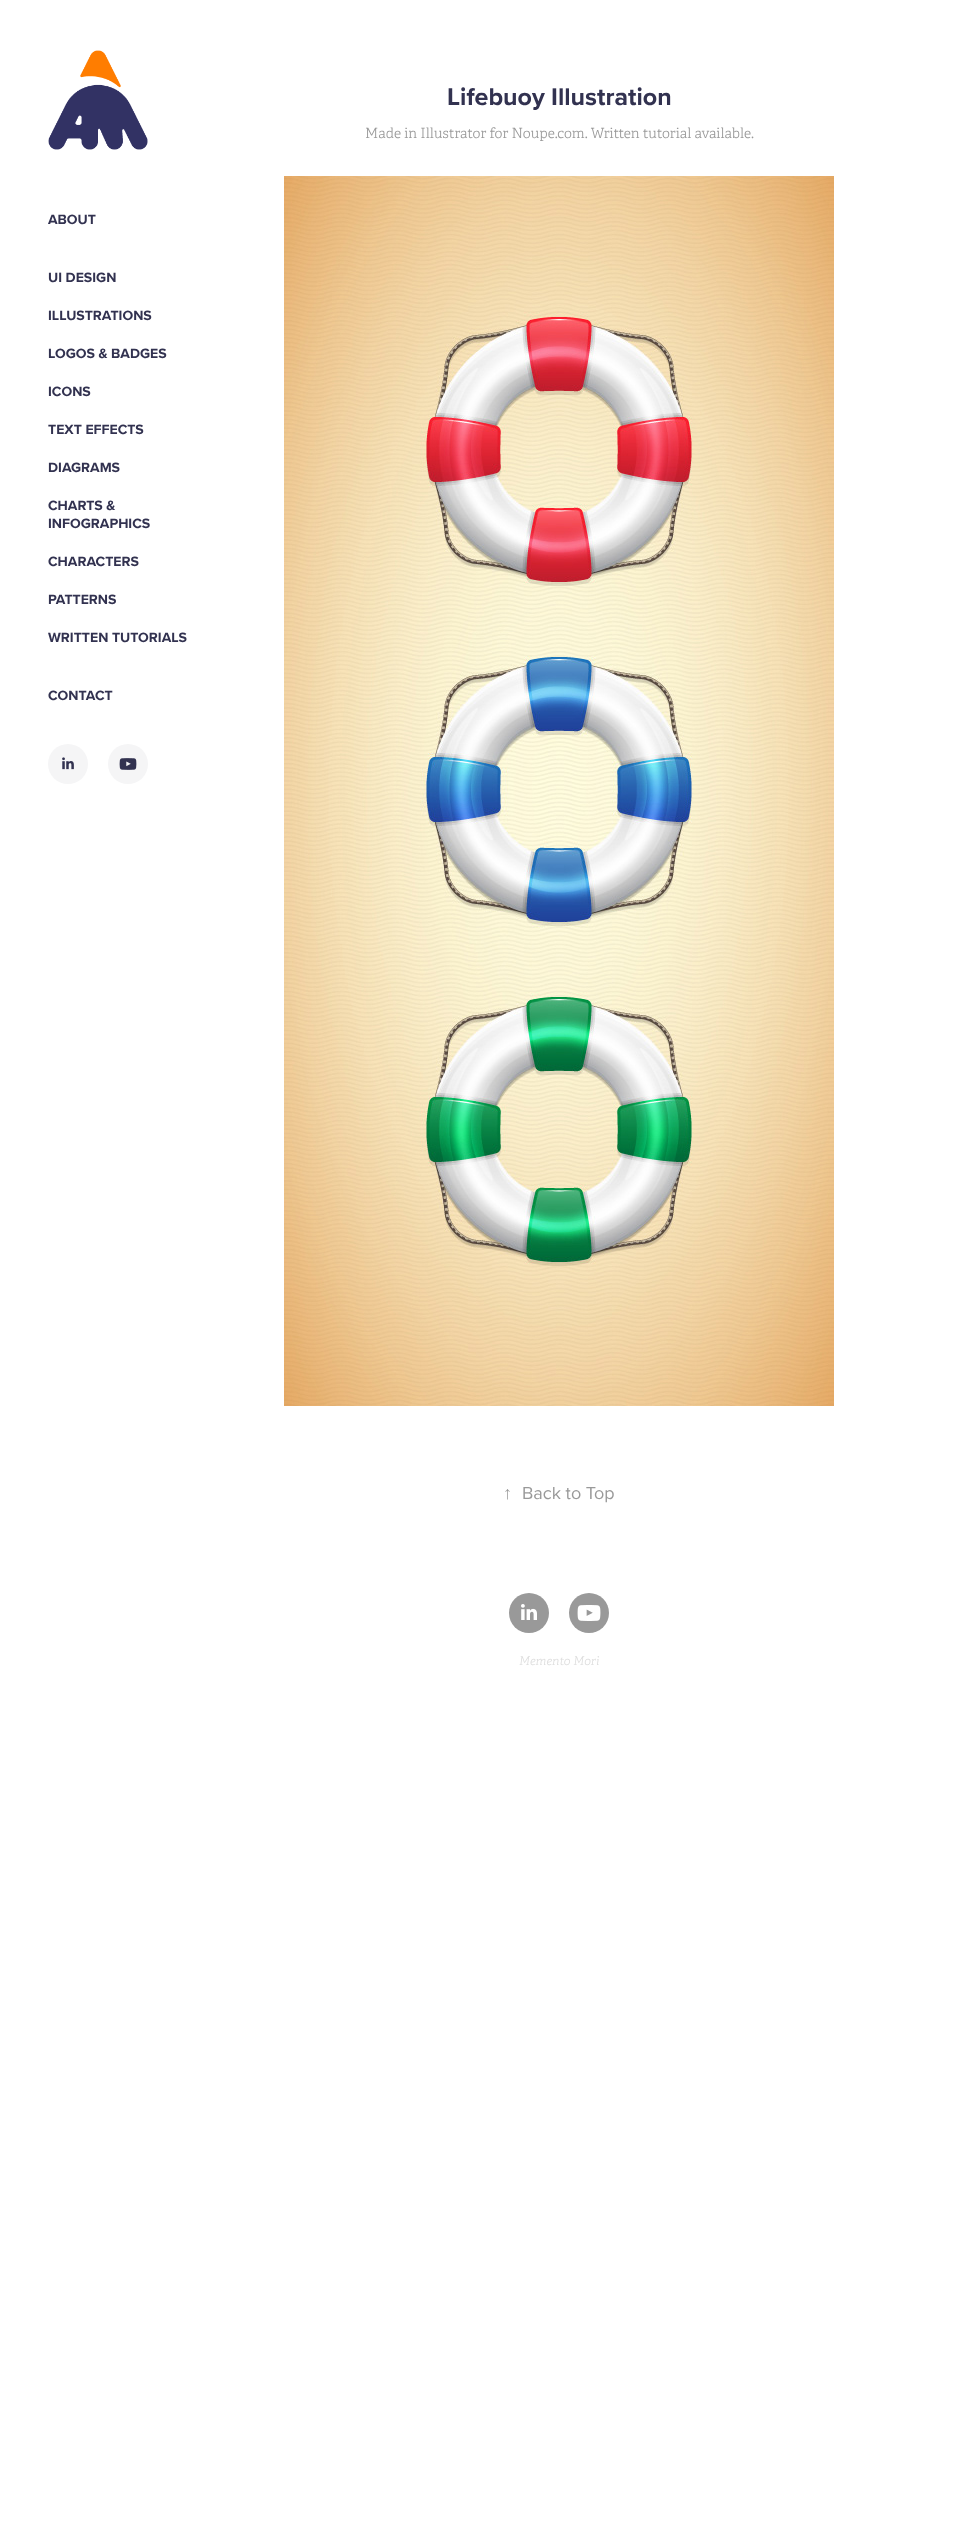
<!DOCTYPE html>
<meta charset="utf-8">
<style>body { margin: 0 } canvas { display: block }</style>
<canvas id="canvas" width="955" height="2535"></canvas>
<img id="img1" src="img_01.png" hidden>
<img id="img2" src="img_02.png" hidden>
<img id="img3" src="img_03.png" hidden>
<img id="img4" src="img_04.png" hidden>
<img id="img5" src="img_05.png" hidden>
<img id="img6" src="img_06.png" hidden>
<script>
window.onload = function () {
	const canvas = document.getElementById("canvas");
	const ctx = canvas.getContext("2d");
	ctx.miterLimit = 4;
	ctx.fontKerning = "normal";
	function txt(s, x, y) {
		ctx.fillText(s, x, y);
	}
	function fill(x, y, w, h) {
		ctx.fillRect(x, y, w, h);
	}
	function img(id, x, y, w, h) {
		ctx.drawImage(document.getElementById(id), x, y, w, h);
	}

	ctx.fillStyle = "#FFFFFF";
	fill(0, 0, 955, 2535);
	img("img1", 48, 50, 100, 100);
	ctx.fillStyle = "#F5F5F6";
	ctx.beginPath();
	ctx.arc(68, 764, 20, 0, Math.PI * 2);
	ctx.fill();
	img("img2", 62, 757, 12, 13);
	ctx.beginPath();
	ctx.arc(128, 764, 20, 0, Math.PI * 2);
	ctx.fill();
	img("img3", 119, 758, 18, 12);
	img("img4", 284, 176, 550, 1230);
	ctx.fillStyle = "#999999";
	ctx.beginPath();
	ctx.arc(529, 1613, 20, 0, Math.PI * 2);
	ctx.fill();
	img("img5", 521, 1604, 16, 16);
	ctx.beginPath();
	ctx.arc(589, 1613, 20, 0, Math.PI * 2);
	ctx.fill();
	img("img6", 577, 1605, 24, 16);
	ctx.font = "bold 14px Proxima Nova";
	ctx.fillStyle = "#323250";
	txt("ABOUT", 48, 224);
	txt("UI DESIGN", 48, 282);
	txt("ILLUSTRATIONS", 48, 320);
	txt("LOGOS & BADGES", 48, 358);
	txt("ICONS", 48, 396);
	txt("TEXT EFFECTS", 48, 434);
	txt("DIAGRAMS", 48, 472);
	txt("CHARTS &", 48, 510);
	txt("INFOGRAPHICS", 48, 528);
	txt("CHARACTERS", 48, 566);
	txt("PATTERNS", 48, 604);
	txt("WRITTEN TUTORIALS", 48, 642);
	txt("CONTACT", 48, 700);
	ctx.font = "bold 25px Proxima Nova";
	txt("Lifebuoy Illustration", 447, 105);
	ctx.font = "300 14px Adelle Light";
	ctx.fillStyle = "#999999";
	txt("Made in Illustrator for Noupe.com. Written tutorial available.", 365, 138);
	ctx.font = "18px Liberation Serif";
	txt("↑", 503, 1499);
	ctx.font = "18px Proxima Nova";
	txt("Back to Top", 522, 1499);
	ctx.font = "italic 300 12px Adelle Light";
	ctx.fillStyle = "#DDDDDD";
	txt("Memento Mori", 519, 1665);
};
</script>
